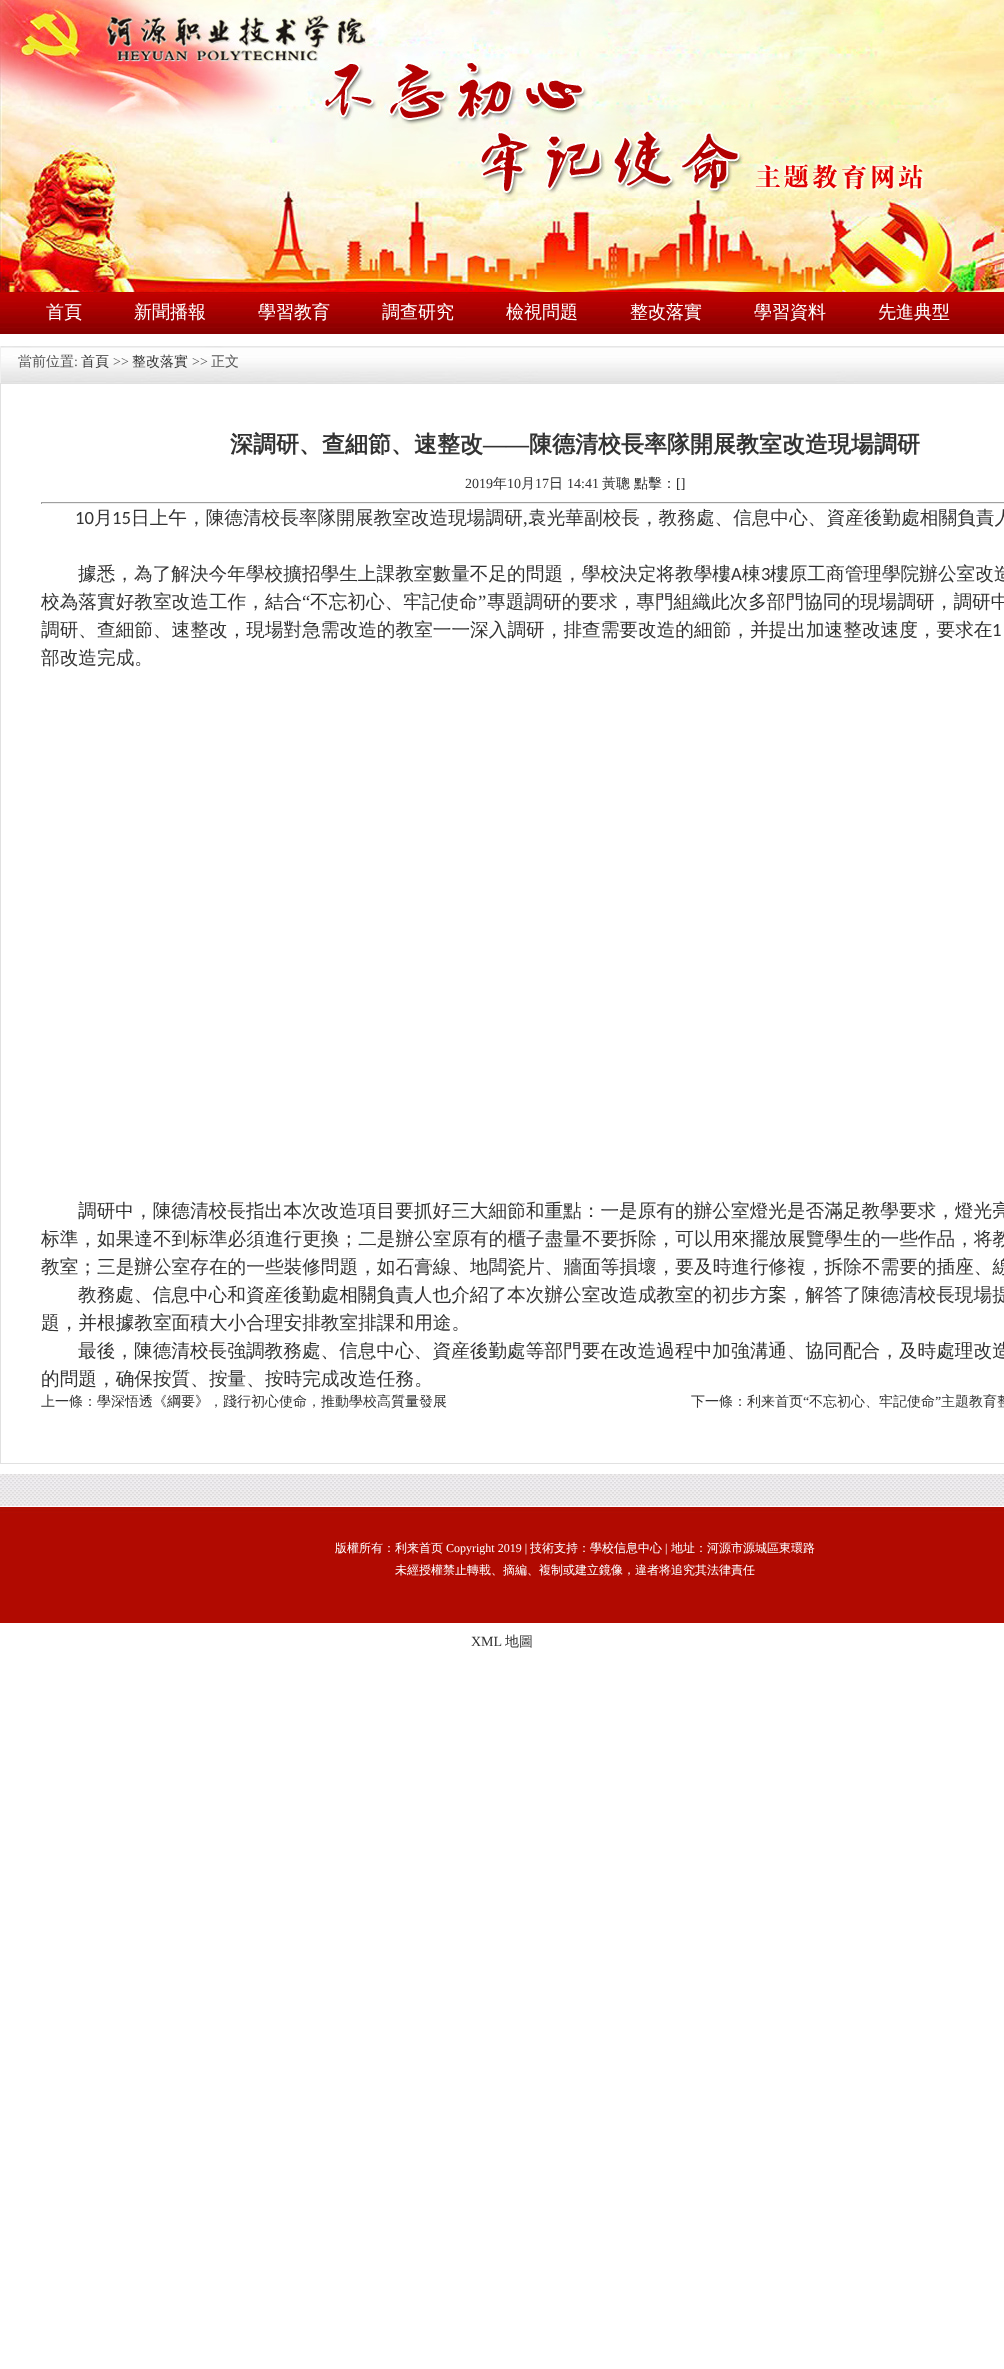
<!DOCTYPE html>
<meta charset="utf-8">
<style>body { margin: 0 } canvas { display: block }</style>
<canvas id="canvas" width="1004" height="2369"></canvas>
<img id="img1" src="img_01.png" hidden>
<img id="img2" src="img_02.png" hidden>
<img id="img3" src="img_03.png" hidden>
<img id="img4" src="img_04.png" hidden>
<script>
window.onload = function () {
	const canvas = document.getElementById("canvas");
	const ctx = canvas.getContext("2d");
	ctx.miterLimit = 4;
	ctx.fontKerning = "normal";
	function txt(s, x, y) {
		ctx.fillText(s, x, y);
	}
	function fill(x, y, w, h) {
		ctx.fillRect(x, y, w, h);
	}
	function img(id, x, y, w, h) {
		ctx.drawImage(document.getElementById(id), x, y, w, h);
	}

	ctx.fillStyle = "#FFFFFF";
	fill(0, 0, 1004, 2369);
	img("img1", 0, 0, 1004, 292);
	img("img2", 0, 292, 1004, 42);
	img("img3", 0, 346, 1004, 37);
	ctx.strokeStyle = "#E1E1E1";
	ctx.strokeRect(0.5, 383.5, 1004, 1080);
	ctx.fillStyle = "#9F9F9F";
	fill(41, 502, 963, 1);
	ctx.fillStyle = "#EEEEEE";
	fill(41, 503, 963, 1);
	ctx.fillStyle = "#9F9F9F";
	fill(41, 502, 1, 2);
	img("img4", 0, 1474, 1004, 149);
	ctx.font = "500 18px WenQuanYi Zen Hei";
	ctx.fillStyle = "#FFFFFF";
	txt("首頁", 46, 318);
	txt("新聞播報", 134, 318);
	txt("學習教育", 258, 318);
	txt("調查研究", 382, 318);
	txt("檢視問題", 506, 318);
	txt("整改落實", 630, 318);
	txt("學習資料", 754, 318);
	txt("先進典型", 878, 318);
	ctx.font = "500 14px WenQuanYi Zen Hei";
	ctx.fillStyle = "#555555";
	txt("當前位置", 18, 366);
	ctx.font = "14px Liberation Serif";
	txt(":", 74, 366);
	ctx.font = "500 14px WenQuanYi Zen Hei";
	ctx.fillStyle = "#333333";
	txt("首頁", 81, 366);
	ctx.font = "14px Liberation Serif";
	ctx.fillStyle = "#555555";
	txt(">>", 113, 366);
	ctx.font = "500 14px WenQuanYi Zen Hei";
	ctx.fillStyle = "#333333";
	txt("整改落實", 132, 366);
	ctx.font = "14px Liberation Serif";
	ctx.fillStyle = "#555555";
	txt(">>", 192, 366);
	ctx.font = "500 14px WenQuanYi Zen Hei";
	txt("正文", 211, 366);
	ctx.font = "bold 23px WenQuanYi Zen Hei";
	ctx.fillStyle = "#333333";
	txt("深調研、查細節、速整改", 230, 452);
	ctx.font = "bold 23px Liberation Serif";
	txt("——", 483, 452);
	ctx.font = "bold 23px WenQuanYi Zen Hei";
	txt("陳德清校長率隊開展教室改造現場調研", 529, 452);
	ctx.font = "14px Liberation Serif";
	txt("2019", 465, 488);
	ctx.font = "500 14px WenQuanYi Zen Hei";
	txt("年", 493, 488);
	ctx.font = "14px Liberation Serif";
	txt("10", 507, 488);
	ctx.font = "500 14px WenQuanYi Zen Hei";
	txt("月", 521, 488);
	ctx.font = "14px Liberation Serif";
	txt("17", 535, 488);
	ctx.font = "500 14px WenQuanYi Zen Hei";
	txt("日", 549, 488);
	ctx.font = "14px Liberation Serif";
	txt("14:41", 567, 488);
	ctx.font = "500 14px WenQuanYi Zen Hei";
	txt("黃聰", 602, 488);
	ctx.fillStyle = "#222222";
	txt("點擊：", 634, 488);
	ctx.font = "14px Liberation Serif";
	txt("[]", 676, 488);
	ctx.font = "18.67px Carlito";
	ctx.fillStyle = "#333333";
	txt("10", 75, 524);
	ctx.font = "500 18.67px WenQuanYi Zen Hei";
	txt("月", 94, 524);
	ctx.font = "18.67px Carlito";
	txt("15", 112, 524);
	ctx.font = "500 18.67px WenQuanYi Zen Hei";
	txt("日上午，陳德清校長率隊開展教室改造現場調研", 131, 524);
	ctx.font = "18.67px Liberation Serif";
	txt(",", 523, 524);
	ctx.font = "500 18.67px WenQuanYi Zen Hei";
	txt("袁光華副校長，教務處、信息中心、資産後勤處相關負責人", 528, 524);
	txt("據悉，為了解決今年學校擴招學生上課教室數量不足的問題，學校決定将教學樓", 78, 580);
	ctx.font = "18.67px Carlito";
	txt("A", 731, 580);
	ctx.font = "500 18.67px WenQuanYi Zen Hei";
	txt("棟", 742, 580);
	ctx.font = "18.67px Carlito";
	txt("3", 761, 580);
	ctx.font = "500 18.67px WenQuanYi Zen Hei";
	txt("樓原工商管理學院辦公室改造", 770, 580);
	txt("校為落實好教室改造工作，結合", 41, 608);
	ctx.font = "18.67px Liberation Serif";
	txt("“", 302, 608);
	ctx.font = "500 18.67px WenQuanYi Zen Hei";
	txt("不忘初心、牢記使命", 310, 608);
	ctx.font = "18.67px Liberation Serif";
	txt("”", 478, 608);
	ctx.font = "500 18.67px WenQuanYi Zen Hei";
	txt("專題調研的要求，專門組織此次多部門協同的現場調研，調研中", 487, 608);
	txt("調研、查細節、速整改，現場對急需改造的教室一一深入調研，排查需要改造的細節，并提出加速整改速度，要求在", 41, 636);
	ctx.font = "18.67px Carlito";
	txt("1", 992, 636);
	ctx.font = "500 18.67px WenQuanYi Zen Hei";
	txt("部改造完成。", 41, 664);
	txt("調研中，陳德清校長指出本次改造項目要抓好三大細節和重點：一是原有的辦公室燈光是否滿足教學要求，燈光亮", 78, 1217);
	txt("标準，如果達不到标準必須進行更換；二是辦公室原有的櫃子盡量不要拆除，可以用來擺放展覽學生的一些作品，将教", 41, 1245);
	txt("教室；三是辦公室存在的一些裝修問題，如石膏線、地闆瓷片、牆面等損壞，要及時進行修複，拆除不需要的插座、線", 41, 1273);
	txt("教務處、信息中心和資産後勤處相關負責人也介紹了本次辦公室改造成教室的初步方案，解答了陳德清校長現場提", 78, 1301);
	txt("題，并根據教室面積大小合理安排教室排課和用途。", 41, 1329);
	txt("最後，陳德清校長強調教務處、信息中心、資産後勤處等部門要在改造過程中加強溝通、協同配合，及時處理改造", 78, 1357);
	txt("的問題，确保按質、按量、按時完成改造任務。", 41, 1385);
	ctx.font = "500 14px WenQuanYi Zen Hei";
	txt("上一條：學深悟透《綱要》，踐行初心使命，推動學校高質量發展", 41, 1406);
	txt("下一條：利来首页", 691, 1406);
	ctx.font = "14px Liberation Serif";
	txt("“", 803, 1406);
	ctx.font = "500 14px WenQuanYi Zen Hei";
	txt("不忘初心、牢記使命", 809, 1406);
	ctx.font = "14px Liberation Serif";
	txt("”", 935, 1406);
	ctx.font = "500 14px WenQuanYi Zen Hei";
	txt("主題教育整", 941, 1406);
	ctx.font = "500 12px WenQuanYi Zen Hei";
	ctx.fillStyle = "#FFFFFF";
	txt("版權所有：利来首页", 335, 1552);
	ctx.font = "12px Liberation Serif";
	txt("Copyright 2019 |", 446, 1552);
	ctx.font = "500 12px WenQuanYi Zen Hei";
	txt("技術支持：學校信息中心", 530, 1552);
	ctx.font = "12px Liberation Serif";
	txt("|", 665, 1552);
	ctx.font = "500 12px WenQuanYi Zen Hei";
	txt("地址：河源市源城區東環路", 671, 1552);
	txt("未經授權禁止轉載、摘編、複制或建立鏡像，違者将追究其法律責任", 395, 1574);
	ctx.font = "14px Liberation Serif";
	ctx.fillStyle = "#333333";
	txt("XML", 471, 1646);
	ctx.font = "500 14px WenQuanYi Zen Hei";
	txt("地圖", 505, 1646);
};
</script>
